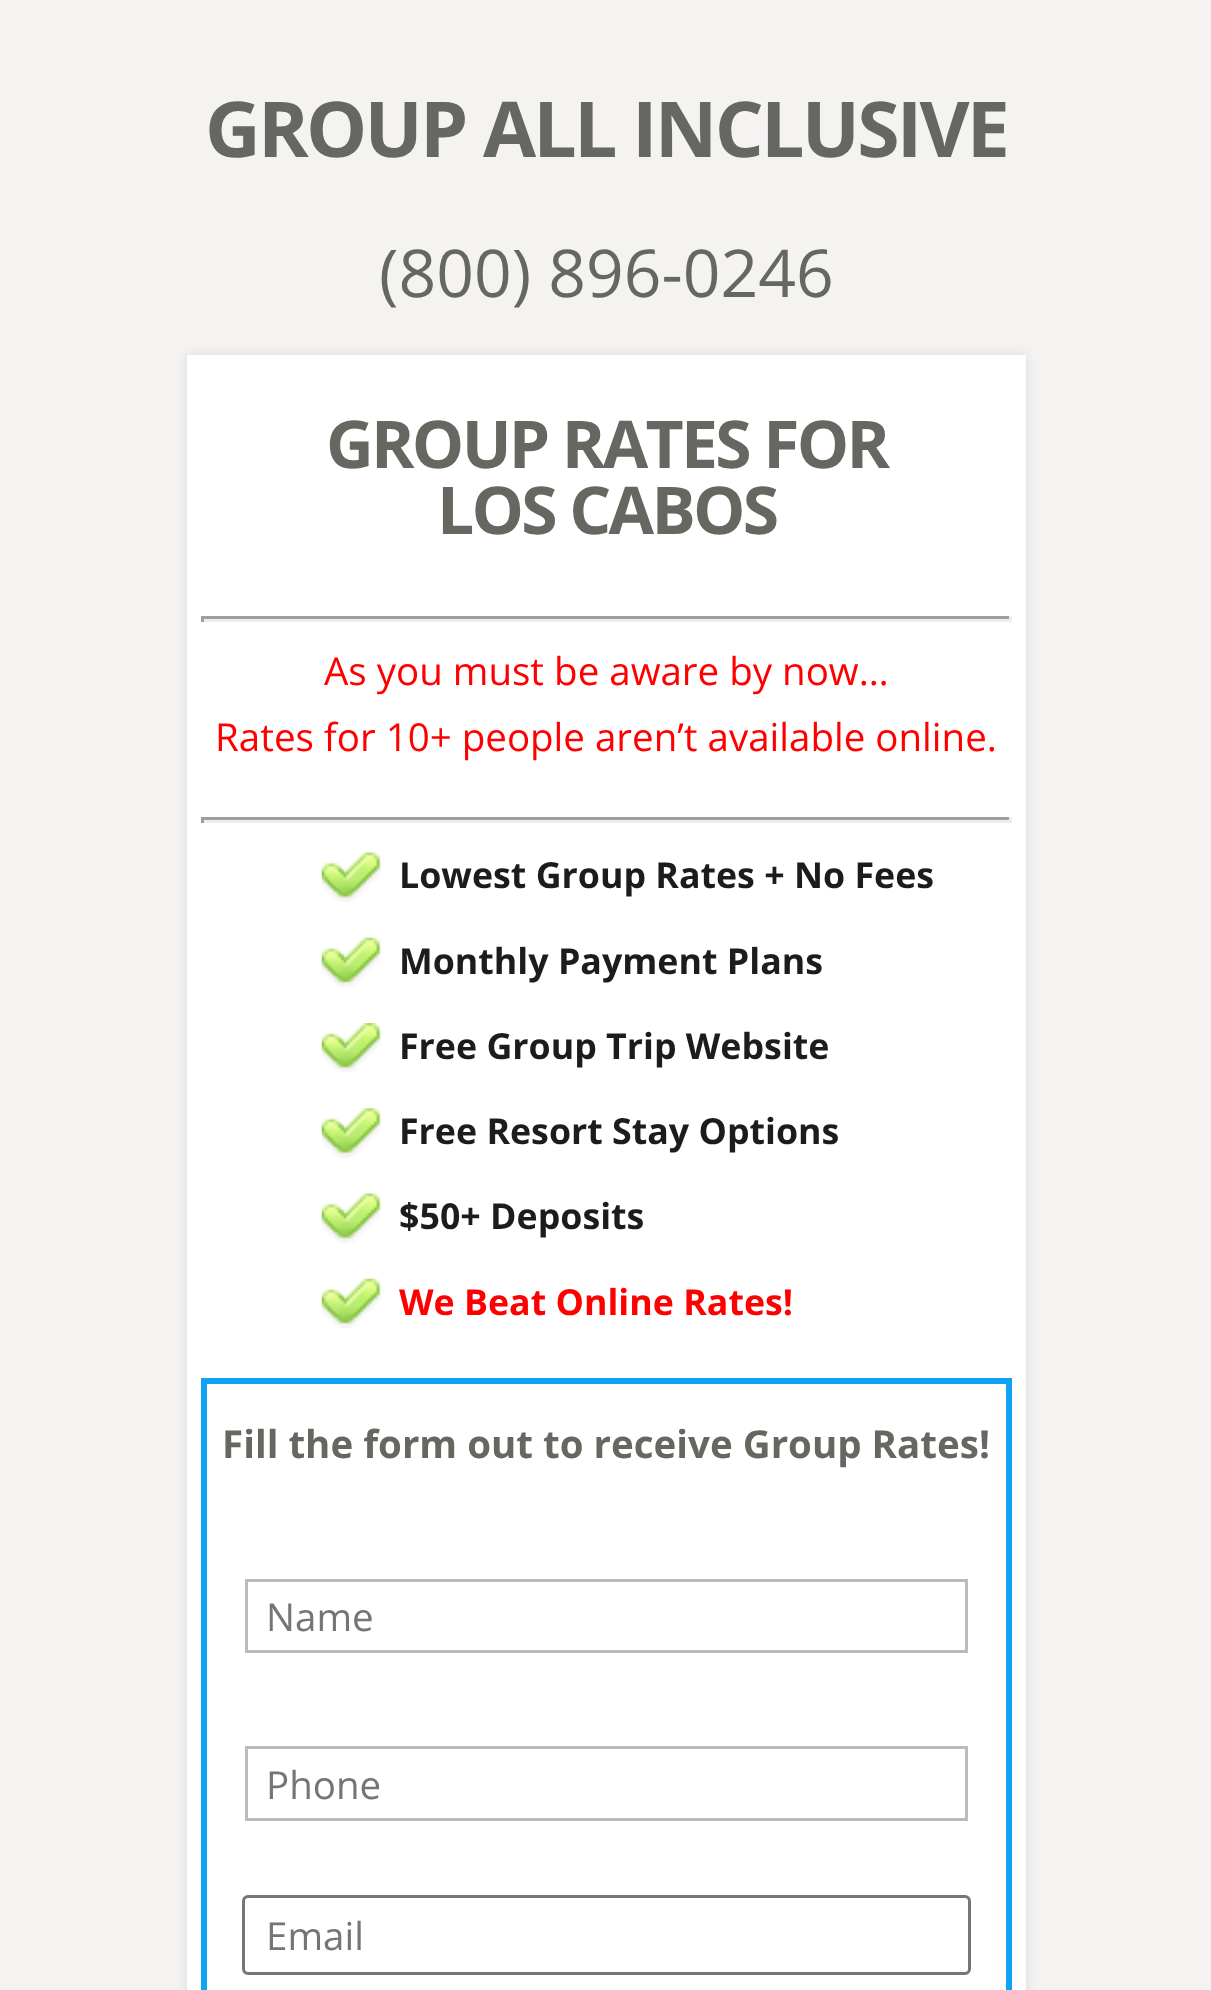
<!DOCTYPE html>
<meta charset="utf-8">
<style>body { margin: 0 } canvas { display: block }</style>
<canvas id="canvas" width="1211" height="1990"></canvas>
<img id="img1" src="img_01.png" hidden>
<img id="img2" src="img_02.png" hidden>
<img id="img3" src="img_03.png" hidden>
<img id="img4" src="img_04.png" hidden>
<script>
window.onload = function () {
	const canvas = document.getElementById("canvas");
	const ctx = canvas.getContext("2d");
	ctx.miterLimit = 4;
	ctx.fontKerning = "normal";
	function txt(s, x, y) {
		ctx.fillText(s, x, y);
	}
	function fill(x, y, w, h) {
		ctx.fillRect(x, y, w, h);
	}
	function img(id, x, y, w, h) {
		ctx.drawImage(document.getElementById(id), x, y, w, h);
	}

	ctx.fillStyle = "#F5F2F2";
	fill(0, 0, 1211, 1990);
	ctx.fillStyle = "rgba(0, 0, 0, 0.1)";
	ctx.filter = "blur(5.5px)";
	ctx.beginPath();
	ctx.rect(187, 355, 839, 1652);
	ctx.fill();
	ctx.filter = "none";
	ctx.fillStyle = "#FFFFFF";
	fill(187, 355, 839, 1635);
	ctx.fillStyle = "#9F9F9F";
	fill(201, 616, 811, 3);
	ctx.fillStyle = "#EEEEEE";
	fill(1009, 616, 3, 6);
	fill(201, 619, 811, 3);
	ctx.fillStyle = "#9F9F9F";
	fill(201, 616, 3, 6);
	fill(201, 817, 811, 3);
	ctx.fillStyle = "#EEEEEE";
	fill(1009, 817, 3, 6);
	fill(201, 820, 811, 3);
	ctx.fillStyle = "#9F9F9F";
	fill(201, 817, 3, 6);
	img("img1", 321, 852, 60, 50);
	img("img2", 321, 937, 60, 50);
	img("img3", 321, 1023, 60, 49);
	img("img4", 321, 1108, 60, 50);
	img("img1", 321, 1193, 60, 50);
	img("img2", 321, 1278, 60, 50);
	ctx.strokeStyle = "#11A3F2";
	ctx.lineWidth = 6;
	ctx.strokeRect(204, 1381, 805, 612);
	ctx.strokeStyle = "#BBBBBB";
	ctx.lineWidth = 3;
	ctx.strokeRect(246.5, 1580.5, 720, 71);
	ctx.strokeRect(246.5, 1747.5, 720, 72);
	ctx.beginPath();
	ctx.roundRect(243.5, 1896.5, 726, 77, 4.5);
	ctx.strokeStyle = "#767676";
	ctx.stroke();
	ctx.letterSpacing = "-2.75px";
	ctx.font = "bold 77px Open Sans";
	ctx.fillStyle = "#676761";
	txt("GROUP ALL INCLUSIVE", 205, 157);
	ctx.letterSpacing = "0px";
	ctx.font = "66px Open Sans";
	txt("(800) 896-0246", 379, 297);
	ctx.letterSpacing = "-2.75px";
	ctx.font = "bold 66px Open Sans";
	txt("GROUP RATES FOR", 326, 468);
	txt("LOS CABOS", 437, 534);
	ctx.letterSpacing = "0px";
	ctx.font = "38.5px Open Sans";
	ctx.fillStyle = "#FF0000";
	txt("As you must be aware by now…", 324, 685);
	txt("Rates for 10+ people aren’t available online.", 215, 751);
	ctx.font = "bold 35.75px Open Sans";
	ctx.fillStyle = "#1C1C1C";
	txt("Lowest Group Rates + No Fees", 399, 888);
	txt("Monthly Payment Plans", 399, 974);
	txt("Free Group Trip Website", 399, 1059);
	txt("Free Resort Stay Options", 399, 1144);
	txt("$50+ Deposits", 399, 1229);
	ctx.fillStyle = "#FF0000";
	txt("We Beat Online Rates!", 399, 1315);
	ctx.font = "bold 38.5px Open Sans";
	ctx.fillStyle = "#676761";
	txt("Fill the form out to receive Group Rates!", 222, 1458);
	ctx.font = "38.5px Open Sans";
	ctx.fillStyle = "#757575";
	txt("Name", 266, 1631);
	txt("Phone", 266, 1799);
	txt("Email", 266, 1950);
};
</script>
